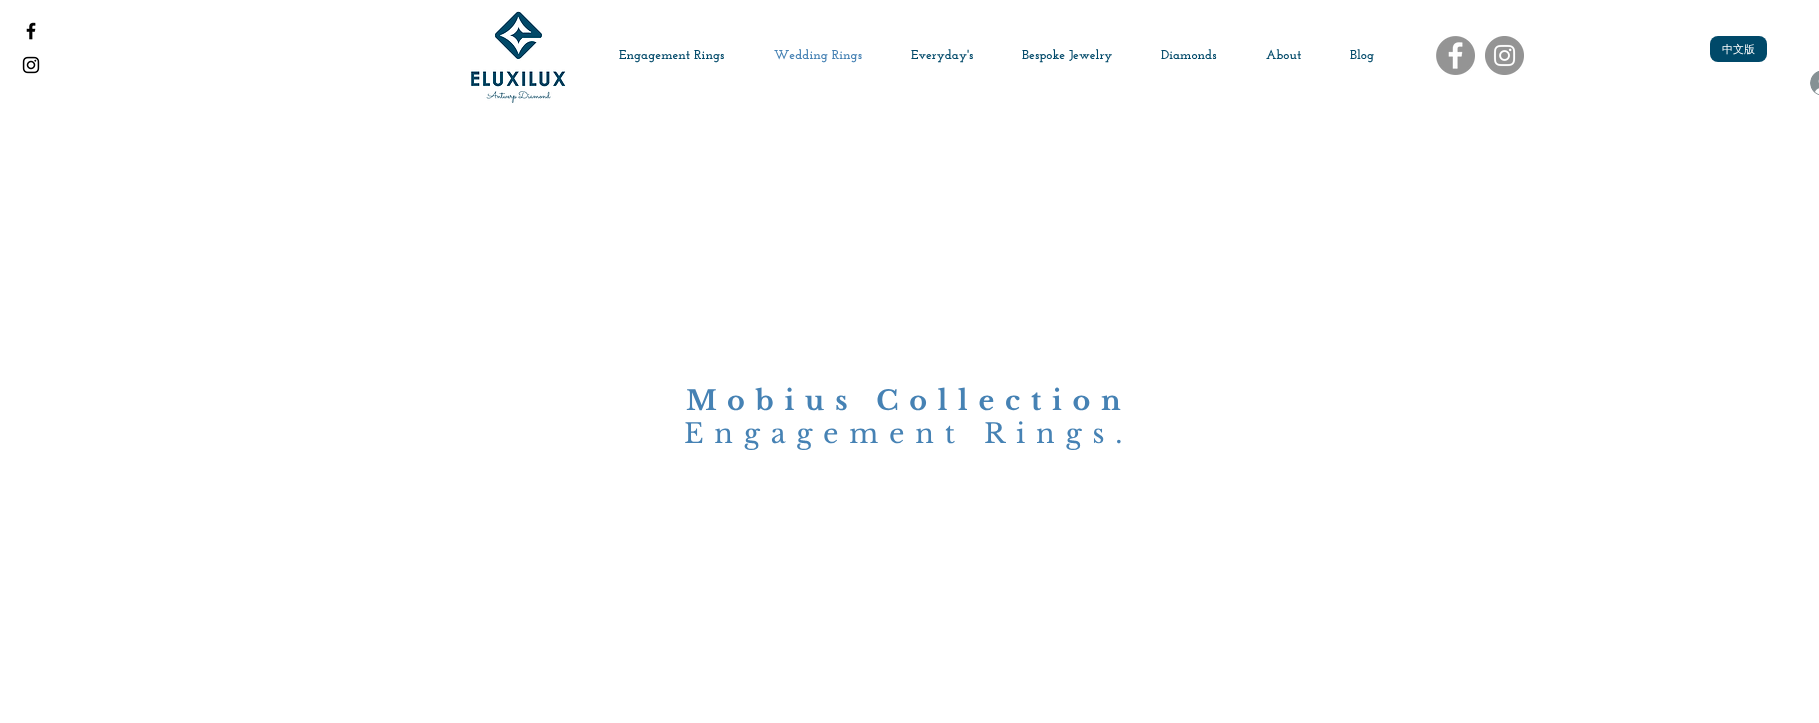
<!DOCTYPE html>
<meta charset="utf-8">
<style>body { margin: 0 } canvas { display: block }</style>
<canvas id="canvas" width="1819" height="723"></canvas>
<img id="img1" src="img_01.png" hidden>
<img id="img2" src="img_02.png" hidden>
<img id="img3" src="img_03.png" hidden>
<img id="img4" src="img_04.png" hidden>
<img id="img5" src="img_05.png" hidden>
<img id="img6" src="img_06.png" hidden>
<script>
window.onload = function () {
	const canvas = document.getElementById("canvas");
	const ctx = canvas.getContext("2d");
	ctx.miterLimit = 4;
	ctx.fontKerning = "normal";
	function txt(s, x, y) {
		ctx.fillText(s, x, y);
	}
	function fill(x, y, w, h) {
		ctx.fillRect(x, y, w, h);
	}
	function round(x, y, w, h, r) {
		ctx.beginPath();
		ctx.roundRect(x, y, w, h, r);
		ctx.fill();
	}
	function img(id, x, y, w, h) {
		ctx.drawImage(document.getElementById(id), x, y, w, h);
	}

	ctx.fillStyle = "#FFFFFF";
	fill(0, 0, 1819, 723);
	img("img1", 26, 22, 10, 18);
	img("img2", 22, 56, 18, 18);
	img("img3", 471, 11, 95, 92);
	img("img4", 1436, 36, 39, 39);
	img("img5", 1485, 36, 39, 39);
	ctx.fillStyle = "#004969";
	round(1710, 36, 57, 26, 8);
	img("img6", 1810, 71, 9, 24);
	ctx.font = "bold 13px Josefin Slab";
	txt("Engagement Rings", 619, 59);
	ctx.fillStyle = "#4682B4";
	txt("Wedding Rings", 774, 59);
	ctx.fillStyle = "#004969";
	txt("Everyday's", 911, 59);
	txt("Bespoke Jewelry", 1022, 59);
	txt("Diamonds", 1161, 59);
	txt("About", 1266, 59);
	txt("Blog", 1350, 59);
	ctx.font = "500 11px WenQuanYi Zen Hei";
	ctx.fillStyle = "#FFFFFF";
	txt("中文版", 1722, 53);
	ctx.letterSpacing = "10.75px";
	ctx.font = "bold 27px Libre Baskerville";
	ctx.fillStyle = "#4682B4";
	txt("Mobius Collection", 686, 410);
	ctx.font = "27px Libre Baskerville";
	txt("Engagement Rings.", 684, 443);
};
</script>
